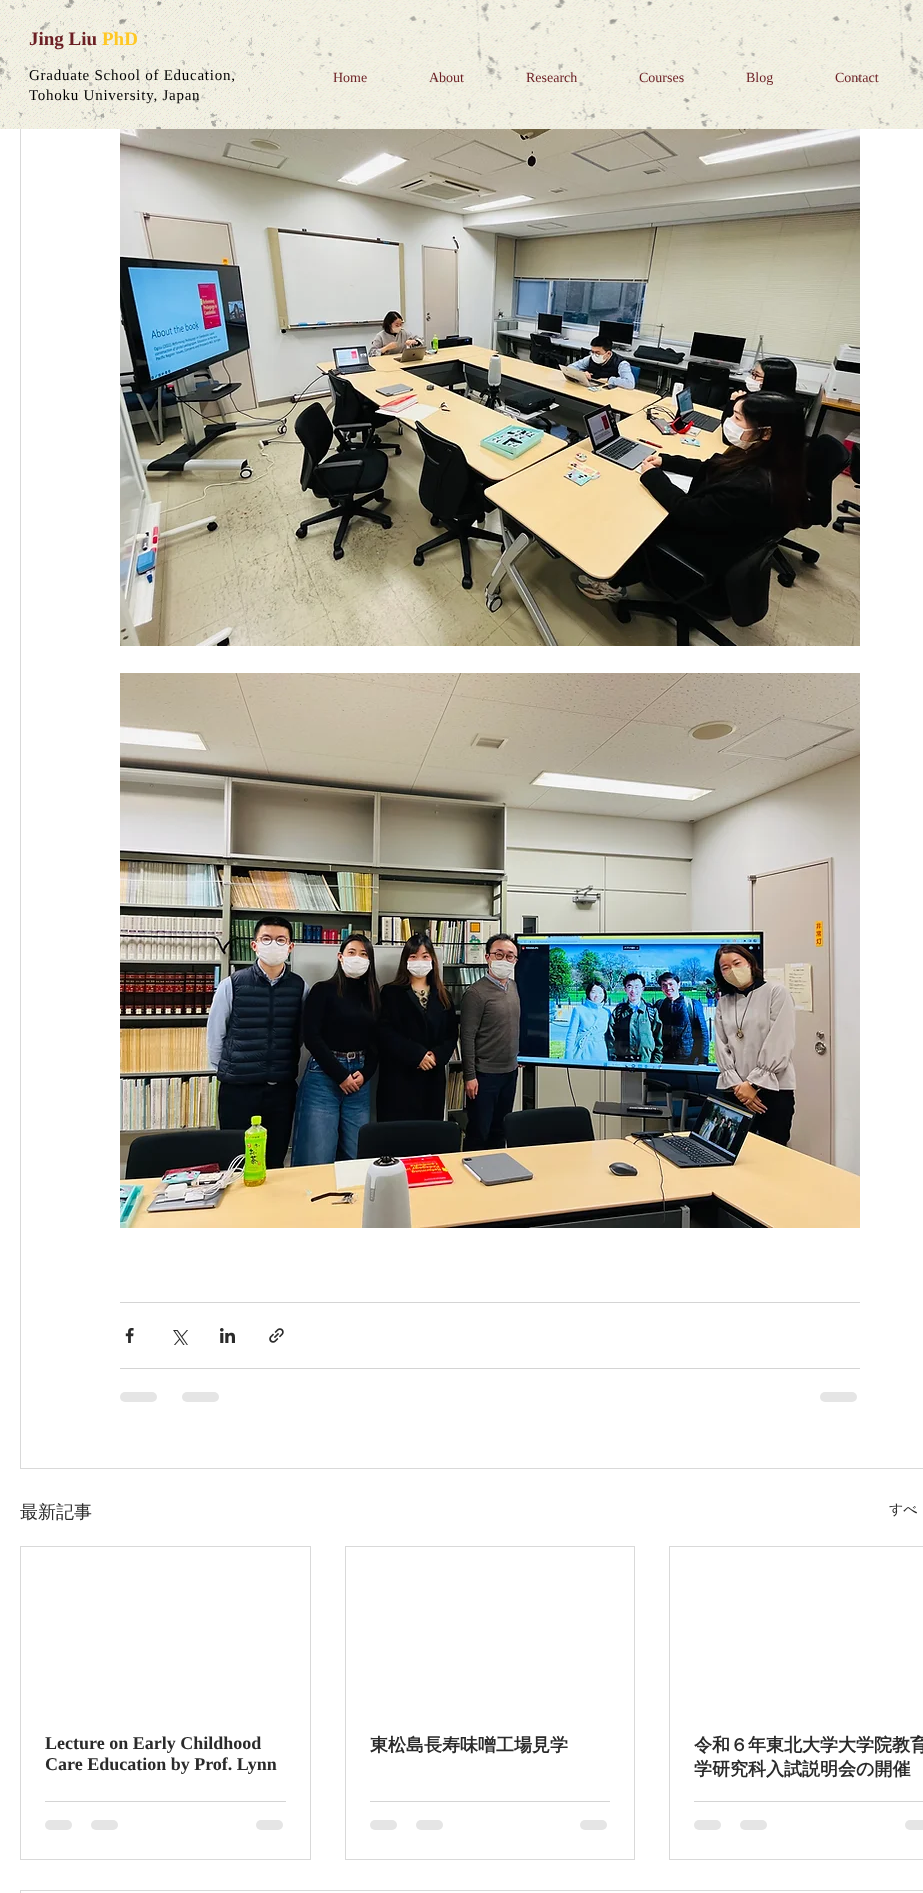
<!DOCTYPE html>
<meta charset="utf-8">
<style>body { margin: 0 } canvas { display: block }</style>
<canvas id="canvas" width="923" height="1893"></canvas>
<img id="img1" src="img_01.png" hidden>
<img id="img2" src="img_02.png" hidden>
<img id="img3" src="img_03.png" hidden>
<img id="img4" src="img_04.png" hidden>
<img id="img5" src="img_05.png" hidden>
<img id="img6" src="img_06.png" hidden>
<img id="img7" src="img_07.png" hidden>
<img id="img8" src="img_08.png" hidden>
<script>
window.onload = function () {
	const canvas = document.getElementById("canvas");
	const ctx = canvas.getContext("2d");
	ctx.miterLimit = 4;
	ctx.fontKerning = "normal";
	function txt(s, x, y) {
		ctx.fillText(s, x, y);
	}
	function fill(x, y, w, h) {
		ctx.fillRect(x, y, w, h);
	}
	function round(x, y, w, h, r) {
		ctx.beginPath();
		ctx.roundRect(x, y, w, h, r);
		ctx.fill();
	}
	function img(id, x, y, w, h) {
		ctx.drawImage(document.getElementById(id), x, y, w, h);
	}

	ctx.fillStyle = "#FFFFFF";
	fill(0, 0, 923, 1893);
	ctx.strokeStyle = "#D9D9D9";
	ctx.strokeRect(20.5, -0.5, 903, 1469);
	ctx.fillStyle = "#F2F0E1";
	fill(0, 0, 923, 129);
	img("img1", 0, 0, 294, 129);
	img("img2", 294, 0, 629, 129);
	img("img3", 120, 129, 740, 517);
	img("img4", 120, 673, 740, 555);
	ctx.fillStyle = "#D4D4D4";
	fill(120, 1302, 740, 1);
	img("img5", 125, 1328, 9, 15);
	img("img6", 173, 1330, 15, 15);
	img("img7", 220, 1328, 15, 15);
	img("img8", 269, 1328, 15, 15);
	fill(120, 1368, 740, 1);
	ctx.fillStyle = "#E5E5E5";
	round(120, 1392, 37, 10, 5);
	round(182, 1392, 37, 10, 5);
	round(820, 1392, 37, 10, 5);
	ctx.strokeRect(20.5, 1546.5, 290, 313);
	ctx.fillStyle = "#D4D4D4";
	fill(45, 1801, 241, 1);
	ctx.fillStyle = "#E5E5E5";
	round(45, 1820, 27, 10, 5);
	round(91, 1820, 27, 10, 5);
	round(256, 1820, 27, 10, 5);
	ctx.strokeRect(345.5, 1546.5, 289, 313);
	ctx.fillStyle = "#D4D4D4";
	fill(370, 1801, 240, 1);
	ctx.fillStyle = "#E5E5E5";
	round(370, 1820, 27, 10, 5);
	round(416, 1820, 27, 10, 5);
	round(580, 1820, 27, 10, 5);
	ctx.strokeRect(669.5, 1546.5, 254, 313);
	ctx.fillStyle = "#D4D4D4";
	fill(694, 1801, 229, 1);
	ctx.fillStyle = "#E5E5E5";
	round(694, 1820, 27, 10, 5);
	round(740, 1820, 27, 10, 5);
	round(905, 1820, 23, 10, 5);
	ctx.strokeRect(20.5, 1890.5, 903, 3);
	ctx.font = "bold 19px Liberation Serif";
	ctx.fillStyle = "#6B1E23";
	txt("Jing Liu", 29, 45);
	ctx.fillStyle = "#FFC824";
	txt("PhD", 102, 45);
	ctx.letterSpacing = "0.75px";
	ctx.font = "15px Liberation Serif";
	ctx.fillStyle = "#000000";
	txt("Graduate School of Education,", 29, 80);
	txt("Tohoku University, Japan", 29, 100);
	ctx.letterSpacing = "0px";
	ctx.font = "14px Liberation Serif";
	ctx.fillStyle = "#6B1E23";
	txt("Home", 333, 82);
	txt("About", 429, 82);
	txt("Research", 526, 82);
	txt("Courses", 639, 82);
	txt("Blog", 746, 82);
	txt("Contact", 835, 82);
	ctx.font = "500 18px WenQuanYi Zen Hei";
	ctx.fillStyle = "#2A2A2A";
	txt("最新記事", 20, 1518);
	ctx.font = "500 14px WenQuanYi Zen Hei";
	txt("すべ", 889, 1514);
	ctx.font = "bold 18px Liberation Serif";
	txt("Lecture on Early Childhood", 45, 1749);
	txt("Care Education by Prof. Lynn", 45, 1770);
	ctx.font = "bold 18px WenQuanYi Zen Hei";
	txt("東松島長寿味噌工場見学", 370, 1751);
	txt("令和６年東北大学大学院教育", 694, 1751);
	txt("学研究科入試説明会の開催", 694, 1775);
};
</script>
